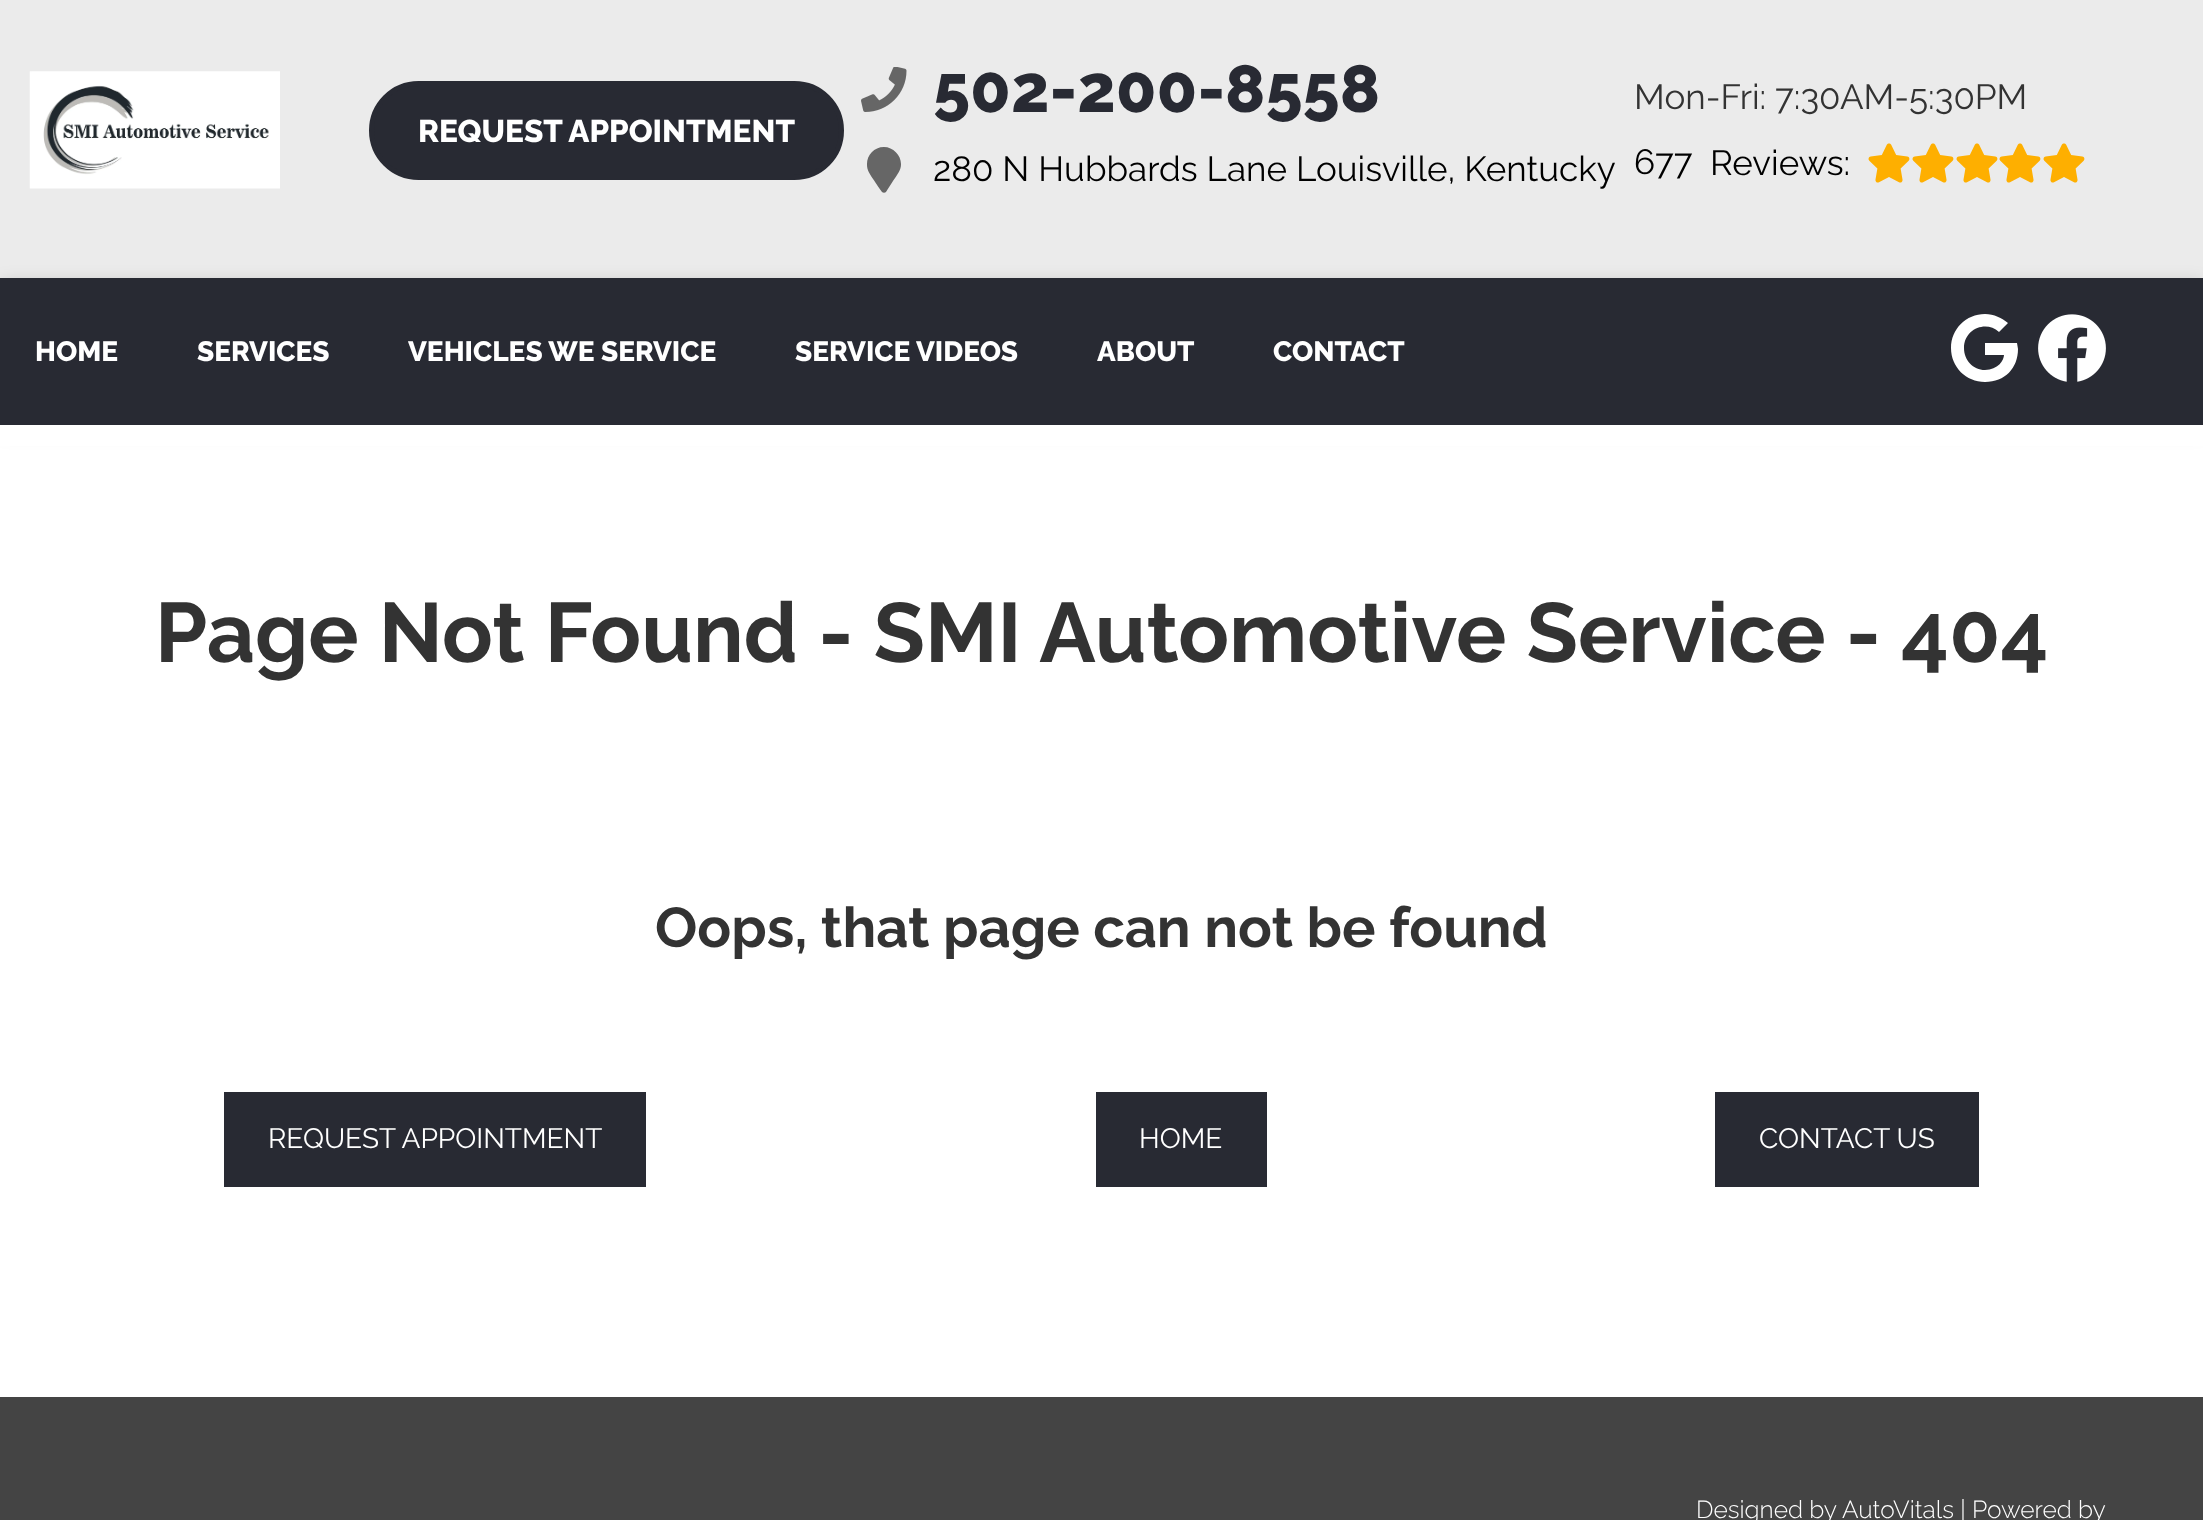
<!DOCTYPE html>
<meta charset="utf-8">
<style>body { margin: 0 } canvas { display: block }</style>
<canvas id="canvas" width="2203" height="1520"></canvas>
<img id="img1" src="img_01.png" hidden>
<img id="img2" src="img_02.png" hidden>
<img id="img3" src="img_03.png" hidden>
<img id="img4" src="img_04.png" hidden>
<script>
window.onload = function () {
	const canvas = document.getElementById("canvas");
	const ctx = canvas.getContext("2d");
	ctx.miterLimit = 4;
	ctx.fontKerning = "normal";
	function txt(s, x, y) {
		ctx.fillText(s, x, y);
	}
	function fill(x, y, w, h) {
		ctx.fillRect(x, y, w, h);
	}
	function img(id, x, y, w, h) {
		ctx.drawImage(document.getElementById(id), x, y, w, h);
	}

	ctx.fillStyle = "#FFFFFF";
	fill(0, 0, 2203, 1520);
	ctx.fillStyle = "#EBEBEB";
	fill(0, 0, 2203, 278);
	img("img1", 29, 71, 251, 118);
	ctx.fillStyle = "#282A33";
	ctx.beginPath();
	ctx.roundRect(371.5, 83.5, 470, 94, 47);
	ctx.fill();
	ctx.strokeStyle = "#282A33";
	ctx.lineWidth = 5;
	ctx.stroke();
	img("img2", 861, 67, 46, 45);
	ctx.fillStyle = "#666666";
	ctx.beginPath();
	ctx.moveTo(882, 192);
	ctx.bezierCurveTo(869, 173, 867, 171, 867, 164);
	ctx.bezierCurveTo(867, 155, 874, 147, 884, 147);
	ctx.bezierCurveTo(893, 147, 901, 155, 901, 164);
	ctx.bezierCurveTo(901, 171, 898, 173, 886, 192);
	ctx.bezierCurveTo(885, 193, 883, 193, 882, 192);
	ctx.closePath();
	ctx.fill();
	img("img3", 1868, 143, 217, 40);
	ctx.fillStyle = "rgba(0, 0, 0, 0.2)";
	ctx.filter = "blur(9px)";
	ctx.beginPath();
	ctx.rect(0, 284, 2203, 147);
	ctx.fill();
	ctx.filter = "none";
	ctx.fillStyle = "#282A33";
	fill(0, 278, 2203, 147);
	ctx.fillStyle = "#FFFFFF";
	ctx.beginPath();
	ctx.moveTo(2018, 349);
	ctx.bezierCurveTo(2018, 368, 2005, 382, 1985, 382);
	ctx.bezierCurveTo(1966, 382, 1951, 367, 1951, 348);
	ctx.bezierCurveTo(1951, 329, 1966, 314, 1985, 314);
	ctx.bezierCurveTo(1994, 314, 2002, 318, 2008, 323);
	ctx.lineTo(1999, 332);
	ctx.bezierCurveTo(1986, 320, 1964, 329, 1964, 348);
	ctx.bezierCurveTo(1964, 360, 1973, 370, 1985, 370);
	ctx.bezierCurveTo(1998, 370, 2004, 360, 2004, 355);
	ctx.lineTo(1985, 355);
	ctx.lineTo(1985, 343);
	ctx.lineTo(2017, 343);
	ctx.closePath();
	ctx.fill();
	img("img4", 2038, 314, 68, 68);
	fill(0, 425, 2203, 21);
	ctx.fillStyle = "#282A33";
	fill(224, 1092, 422, 95);
	fill(1096, 1092, 171, 95);
	fill(1715, 1092, 264, 95);
	ctx.fillStyle = "#444444";
	fill(0, 1397, 2203, 123);
	ctx.font = "800 31.5px Raleway";
	ctx.fillStyle = "#FFFFFF";
	txt("REQUEST APPOINTMENT", 418, 142);
	ctx.font = "800 66.5px Raleway";
	ctx.fillStyle = "#282A33";
	txt("502-200-8558", 933, 112);
	ctx.font = "35px Raleway";
	ctx.fillStyle = "#000000";
	txt("280 N Hubbards Lane Louisville, Kentucky", 933, 181);
	ctx.fillStyle = "#333333";
	txt("Mon-Fri: 7:30AM-5:30PM", 1634, 109);
	ctx.fillStyle = "#000000";
	txt("677", 1634, 174);
	txt("Reviews:", 1710, 175);
	ctx.font = "800 28px Raleway";
	ctx.fillStyle = "#FFFFFF";
	txt("HOME", 35, 361);
	txt("SERVICES", 197, 361);
	txt("VEHICLES WE SERVICE", 408, 361);
	txt("SERVICE VIDEOS", 795, 361);
	txt("ABOUT", 1097, 361);
	txt("CONTACT", 1273, 361);
	ctx.font = "bold 84px Raleway";
	ctx.fillStyle = "#333333";
	txt("Page Not Found - SMI Automotive Service - 404", 155, 662);
	ctx.font = "bold 56px Raleway";
	txt("Oops, that page can not be found", 655, 947);
	ctx.font = "28px Raleway";
	ctx.fillStyle = "#FFFFFF";
	txt("REQUEST APPOINTMENT", 268, 1148);
	txt("HOME", 1139, 1148);
	txt("CONTACT US", 1759, 1148);
	ctx.font = "300 24.5px Raleway";
	txt("Designed by AutoVitals | Powered by", 1696, 1518);
};
</script>
